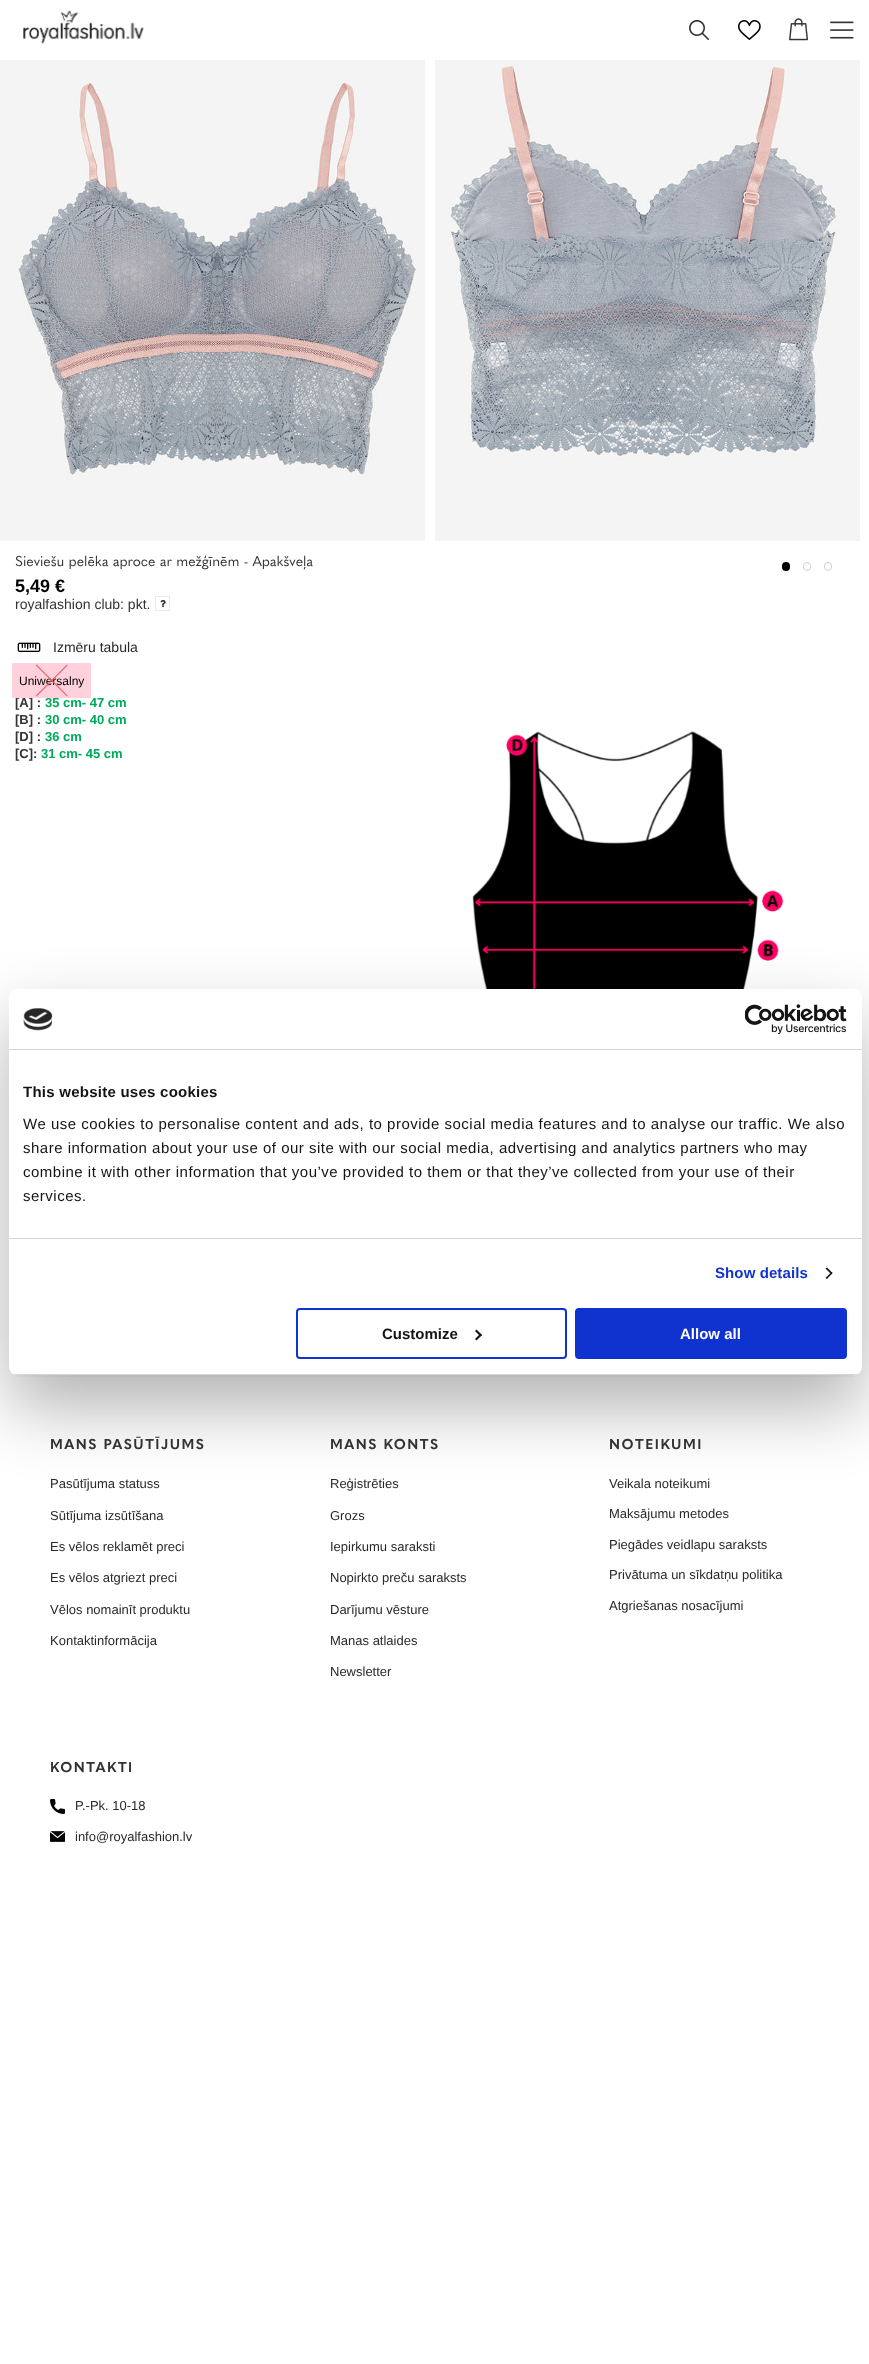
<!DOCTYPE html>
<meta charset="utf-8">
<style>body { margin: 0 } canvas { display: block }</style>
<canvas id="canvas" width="869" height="2364"></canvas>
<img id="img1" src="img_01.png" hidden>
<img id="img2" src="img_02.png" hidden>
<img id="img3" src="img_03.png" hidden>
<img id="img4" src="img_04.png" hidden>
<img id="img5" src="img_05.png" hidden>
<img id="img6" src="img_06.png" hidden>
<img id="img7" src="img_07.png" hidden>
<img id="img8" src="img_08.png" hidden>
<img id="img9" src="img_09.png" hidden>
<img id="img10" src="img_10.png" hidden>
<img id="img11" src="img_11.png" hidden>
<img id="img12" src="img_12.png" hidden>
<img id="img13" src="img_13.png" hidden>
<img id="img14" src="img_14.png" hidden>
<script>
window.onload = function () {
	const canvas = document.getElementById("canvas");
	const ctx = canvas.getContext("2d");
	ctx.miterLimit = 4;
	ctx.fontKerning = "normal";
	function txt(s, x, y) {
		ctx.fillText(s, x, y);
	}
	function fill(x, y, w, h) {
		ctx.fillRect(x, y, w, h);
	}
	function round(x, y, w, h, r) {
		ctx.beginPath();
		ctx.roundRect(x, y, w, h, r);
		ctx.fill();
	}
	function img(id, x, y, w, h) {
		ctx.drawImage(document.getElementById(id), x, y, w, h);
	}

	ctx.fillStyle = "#FFFFFF";
	fill(0, 0, 869, 2364);
	img("img1", 23, 10, 121, 34);
	img("img2", 689, 20, 20, 20);
	img("img3", 738, 20, 23, 20);
	img("img4", 789, 18, 20, 23);
	img("img5", 830, 21, 24, 18);
	img("img6", 0, 60, 425, 481);
	img("img7", 435, 60, 425, 481);
	ctx.fillStyle = "#000000";
	round(782, 562, 8, 9, 4);
	ctx.beginPath();
	ctx.roundRect(803.5, 562.5, 7, 8, 3.5);
	ctx.strokeStyle = "#D0D0D0";
	ctx.stroke();
	ctx.beginPath();
	ctx.roundRect(824.5, 562.5, 7, 8, 3.5);
	ctx.stroke();
	ctx.strokeStyle = "#EAEAEA";
	ctx.strokeRect(155.5, 596.5, 14, 14);
	img("img8", 160, 599, 6, 9);
	img("img9", 17, 642, 24, 10);
	img("img10", 472, 731, 312, 258);
	ctx.fillStyle = "#F8F8F8";
	fill(15, 1374, 839, 3);
	ctx.fillStyle = "rgba(0, 0, 0, 0.3)";
	ctx.filter = "blur(34px)";
	ctx.beginPath();
	ctx.roundRect(9, 1021, 853, 386, 8);
	ctx.fill();
	ctx.filter = "none";
	ctx.fillStyle = "#FFFFFF";
	round(9, 989, 853, 386, 8);
	ctx.fillStyle = "#D6D6D6";
	fill(9, 1049, 853, 1);
	img("img11", 23, 1008, 30, 23);
	img("img12", 745, 1004, 102, 30);
	fill(9, 1238, 853, 1);
	ctx.fillStyle = "#141414";
	ctx.beginPath();
	ctx.moveTo(827, 1267.5);
	ctx.lineTo(832.5, 1273);
	ctx.lineTo(831.5, 1274.5);
	ctx.lineTo(825.5, 1268.5);
	ctx.closePath();
	ctx.fill();
	ctx.beginPath();
	ctx.moveTo(831.5, 1272);
	ctx.lineTo(832.5, 1273);
	ctx.lineTo(827, 1279);
	ctx.lineTo(825.5, 1278);
	ctx.closePath();
	ctx.fill();
	ctx.save();
	ctx.beginPath();
	ctx.roundRect(9, 989, 853, 386, 8);
	ctx.clip();
	ctx.fillStyle = "#D6D6D6";
	fill(9, 1374, 853, 1);
	ctx.restore();
	ctx.beginPath();
	ctx.roundRect(297, 1309, 269, 49, 3);
	ctx.strokeStyle = "#1032CF";
	ctx.lineWidth = 2;
	ctx.stroke();
	ctx.beginPath();
	ctx.moveTo(476.5, 1329.5);
	ctx.lineTo(482, 1335);
	ctx.lineTo(480.5, 1336.5);
	ctx.lineTo(475, 1331);
	ctx.closePath();
	ctx.fill();
	ctx.beginPath();
	ctx.moveTo(480.5, 1333.5);
	ctx.lineTo(482, 1335);
	ctx.lineTo(476.5, 1340.5);
	ctx.lineTo(475, 1339);
	ctx.closePath();
	ctx.fill();
	ctx.fillStyle = "#1032CF";
	ctx.beginPath();
	ctx.roundRect(576, 1309, 270, 49, 3);
	ctx.fill();
	ctx.stroke();
	img("img13", 50, 1799, 15, 15);
	img("img14", 50, 1831, 15, 11);
	ctx.font = "14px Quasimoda";
	ctx.fillStyle = "#333333";
	txt("Sieviešu pelēka aproce ar mežģīnēm - Apakšveļa", 15, 566);
	ctx.font = "bold 18px Liberation Sans";
	ctx.fillStyle = "#000000";
	txt("5,49 €", 15, 592);
	ctx.font = "14px Liberation Sans";
	ctx.fillStyle = "#333333";
	txt("royalfashion club: pkt.", 15, 609);
	ctx.fillStyle = "#292929";
	txt("Izmēru tabula", 53, 652);
	ctx.font = "bold 13px Liberation Sans";
	ctx.fillStyle = "#333333";
	txt("[A] :", 15, 707);
	ctx.fillStyle = "#01A95B";
	txt("35 cm- 47 cm", 45, 707);
	ctx.fillStyle = "#FFD1DC";
	fill(12, 663, 79, 35);
	ctx.font = "12px Liberation Sans";
	ctx.fillStyle = "#000000";
	txt("Uniwersalny", 19, 685);
	ctx.fillStyle = "#E35C5C";
	ctx.beginPath();
	ctx.moveTo(36.5, 664.5);
	ctx.lineTo(67.5, 695.5);
	ctx.lineTo(67, 696.5);
	ctx.lineTo(36, 665.5);
	ctx.closePath();
	ctx.fill();
	ctx.beginPath();
	ctx.moveTo(36, 695.5);
	ctx.lineTo(67, 664.5);
	ctx.lineTo(67.5, 665.5);
	ctx.lineTo(36.5, 696.5);
	ctx.closePath();
	ctx.fill();
	ctx.font = "bold 13px Liberation Sans";
	ctx.fillStyle = "#333333";
	txt("[B] :", 15, 724);
	ctx.fillStyle = "#01A95B";
	txt("30 cm- 40 cm", 45, 724);
	ctx.fillStyle = "#333333";
	txt("[D] :", 15, 741);
	ctx.fillStyle = "#01A95B";
	txt("36 cm", 45, 741);
	ctx.fillStyle = "#333333";
	txt("[C]:", 15, 758);
	ctx.fillStyle = "#01A95B";
	txt("31 cm- 45 cm", 41, 758);
	ctx.letterSpacing = "0.25px";
	ctx.font = "bold 15px Liberation Sans";
	ctx.fillStyle = "#141414";
	txt("This website uses cookies", 23, 1097);
	ctx.letterSpacing = "0.5px";
	ctx.font = "15px Liberation Sans";
	txt("We use cookies to personalise content and ads, to provide social media features and to analyse our traffic. We also", 23, 1129);
	txt("share information about your use of our site with our social media, advertising and analytics partners who may", 23, 1153);
	txt("combine it with other information that you’ve provided to them or that they’ve collected from your use of their", 23, 1177);
	txt("services.", 23, 1201);
	ctx.letterSpacing = "0.1px";
	ctx.font = "bold 15px Liberation Sans";
	ctx.fillStyle = "#1032CF";
	txt("Show details", 715, 1278);
	ctx.letterSpacing = "0px";
	ctx.fillStyle = "#141414";
	txt("Customize", 382, 1339);
	ctx.fillStyle = "#FFFFFF";
	txt("Allow all", 680, 1339);
	ctx.letterSpacing = "1.5px";
	ctx.font = "bold 14px Quasimoda";
	ctx.fillStyle = "#333333";
	txt("MANS PASŪTĪJUMS", 50, 1449);
	ctx.letterSpacing = "0px";
	ctx.font = "13px Liberation Sans";
	ctx.fillStyle = "#292929";
	txt("Pasūtījuma statuss", 50, 1488);
	txt("Sūtījuma izsūtīšana", 50, 1520);
	txt("Es vēlos reklamēt preci", 50, 1551);
	txt("Es vēlos atgriezt preci", 50, 1582);
	txt("Vēlos nomainīt produktu", 50, 1614);
	txt("Kontaktinformācija", 50, 1645);
	ctx.letterSpacing = "1.5px";
	ctx.font = "bold 14px Quasimoda";
	ctx.fillStyle = "#333333";
	txt("MANS KONTS", 330, 1449);
	ctx.letterSpacing = "0px";
	ctx.font = "13px Liberation Sans";
	ctx.fillStyle = "#292929";
	txt("Reģistrēties", 330, 1488);
	txt("Grozs", 330, 1520);
	txt("Iepirkumu saraksti", 330, 1551);
	txt("Nopirkto preču saraksts", 330, 1582);
	txt("Darījumu vēsture", 330, 1614);
	txt("Manas atlaides", 330, 1645);
	txt("Newsletter", 330, 1676);
	ctx.letterSpacing = "1.5px";
	ctx.font = "bold 14px Quasimoda";
	ctx.fillStyle = "#333333";
	txt("NOTEIKUMI", 609, 1449);
	ctx.letterSpacing = "0px";
	ctx.font = "13px Liberation Sans";
	ctx.fillStyle = "#292929";
	txt("Veikala noteikumi", 609, 1488);
	txt("Maksājumu metodes", 609, 1518);
	txt("Piegādes veidlapu saraksts", 609, 1549);
	txt("Privātuma un sīkdatņu politika", 609, 1579);
	txt("Atgriešanas nosacījumi", 609, 1610);
	ctx.letterSpacing = "1.5px";
	ctx.font = "bold 14px Quasimoda";
	ctx.fillStyle = "#333333";
	txt("KONTAKTI", 50, 1772);
	ctx.letterSpacing = "0px";
	ctx.font = "13px Liberation Sans";
	ctx.fillStyle = "#292929";
	txt("P.-Pk. 10-18", 75, 1810);
	txt("info@royalfashion.lv", 75, 1841);
};
</script>
